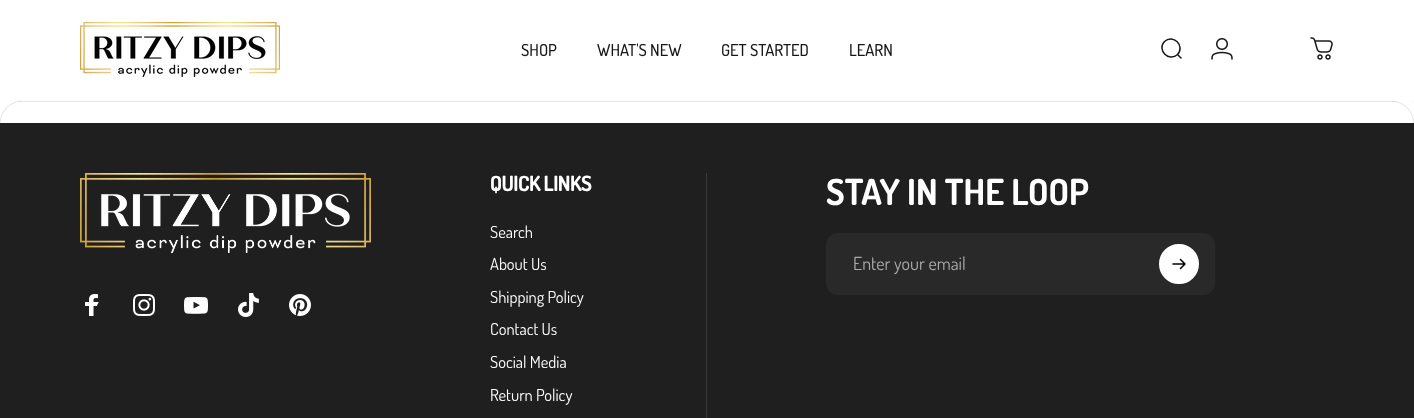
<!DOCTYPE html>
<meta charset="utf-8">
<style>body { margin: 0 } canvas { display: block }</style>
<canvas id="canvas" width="1414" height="418"></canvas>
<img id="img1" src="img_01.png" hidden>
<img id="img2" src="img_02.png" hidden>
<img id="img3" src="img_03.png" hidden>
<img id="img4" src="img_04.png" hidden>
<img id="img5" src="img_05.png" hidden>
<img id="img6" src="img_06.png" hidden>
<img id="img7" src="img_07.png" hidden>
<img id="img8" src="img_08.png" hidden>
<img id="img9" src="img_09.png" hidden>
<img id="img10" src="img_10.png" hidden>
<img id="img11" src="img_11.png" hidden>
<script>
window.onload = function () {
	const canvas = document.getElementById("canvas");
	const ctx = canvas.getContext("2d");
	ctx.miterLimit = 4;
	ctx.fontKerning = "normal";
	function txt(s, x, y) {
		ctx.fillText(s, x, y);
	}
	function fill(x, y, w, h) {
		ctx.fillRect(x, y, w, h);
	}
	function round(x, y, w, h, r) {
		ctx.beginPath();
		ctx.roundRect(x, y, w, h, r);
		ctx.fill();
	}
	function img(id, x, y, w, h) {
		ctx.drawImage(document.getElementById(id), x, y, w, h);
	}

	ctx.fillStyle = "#1F1F1F";
	fill(0, 0, 1414, 418);
	ctx.fillStyle = "#FFFFFF";
	fill(0, 0, 1414, 101);
	img("img1", 80, 22, 200, 55);
	ctx.beginPath();
	ctx.moveTo(1181, 58);
	ctx.lineTo(1177.5, 54.5);
	ctx.moveTo(1177.5, 54.5);
	ctx.bezierCurveTo(1185.5, 46, 1173, 33.5, 1164.5, 41.5);
	ctx.bezierCurveTo(1156.5, 50, 1169, 62.5, 1177.5, 54.5);
	ctx.closePath();
	ctx.strokeStyle = "#171717";
	ctx.lineWidth = 1.5;
	ctx.lineCap = "round";
	ctx.stroke();
	img("img2", 1211, 38, 22, 22);
	img("img3", 1310, 37, 23, 23);
	ctx.fillStyle = "#E5E5E5";
	fill(16, 101, 1398, 1);
	ctx.fillStyle = "#FFFFFF";
	fill(0, 102, 1414, 21);
	img("img4", 0, 101, 22, 22);
	img("img5", 1392, 101, 22, 22);
	ctx.fillStyle = "#393939";
	fill(706, 173, 1, 245);
	img("img6", 80, 173, 291, 80);
	img("img7", 85, 294, 14, 22);
	img("img8", 133, 294, 22, 22);
	img("img9", 184, 297, 24, 17);
	img("img10", 238, 293, 21, 24);
	img("img11", 289, 294, 22, 22);
	ctx.fillStyle = "#292929";
	round(826, 233, 389, 62, 12);
	ctx.fillStyle = "#FFFFFF";
	ctx.beginPath();
	ctx.arc(1179, 264, 19, 0, Math.PI * 2);
	ctx.fill();
	ctx.strokeStyle = "#FFFFFF";
	ctx.lineWidth = 2;
	ctx.stroke();
	ctx.beginPath();
	ctx.moveTo(1173, 264);
	ctx.lineTo(1185, 264);
	ctx.moveTo(1185, 264);
	ctx.lineTo(1180.5, 259.5);
	ctx.moveTo(1185, 264);
	ctx.lineTo(1180.5, 268.5);
	ctx.strokeStyle = "#000000";
	ctx.lineWidth = 1.5;
	ctx.lineJoin = "round";
	ctx.stroke();
	ctx.font = "500 16.5px Dosis";
	ctx.fillStyle = "#171717";
	txt("SHOP", 521, 56);
	txt("WHAT'S NEW", 597, 56);
	txt("GET STARTED", 721, 56);
	txt("LEARN", 849, 56);
	ctx.letterSpacing = "-0.6px";
	ctx.font = "bold 21px Dosis";
	ctx.fillStyle = "#FFFFFF";
	txt("QUICK LINKS", 490, 191);
	ctx.letterSpacing = "0px";
	ctx.font = "16.5px Dosis";
	txt("Search", 490, 238);
	txt("About Us", 490, 270);
	txt("Shipping Policy", 490, 303);
	txt("Contact Us", 490, 335);
	txt("Social Media", 490, 368);
	txt("Return Policy", 490, 401);
	ctx.font = "bold 35.75px Dosis";
	txt("STAY IN THE LOOP", 826, 205);
	ctx.font = "18px Dosis";
	ctx.fillStyle = "#A9A9A9";
	txt("Enter your email", 853, 270);
};
</script>
